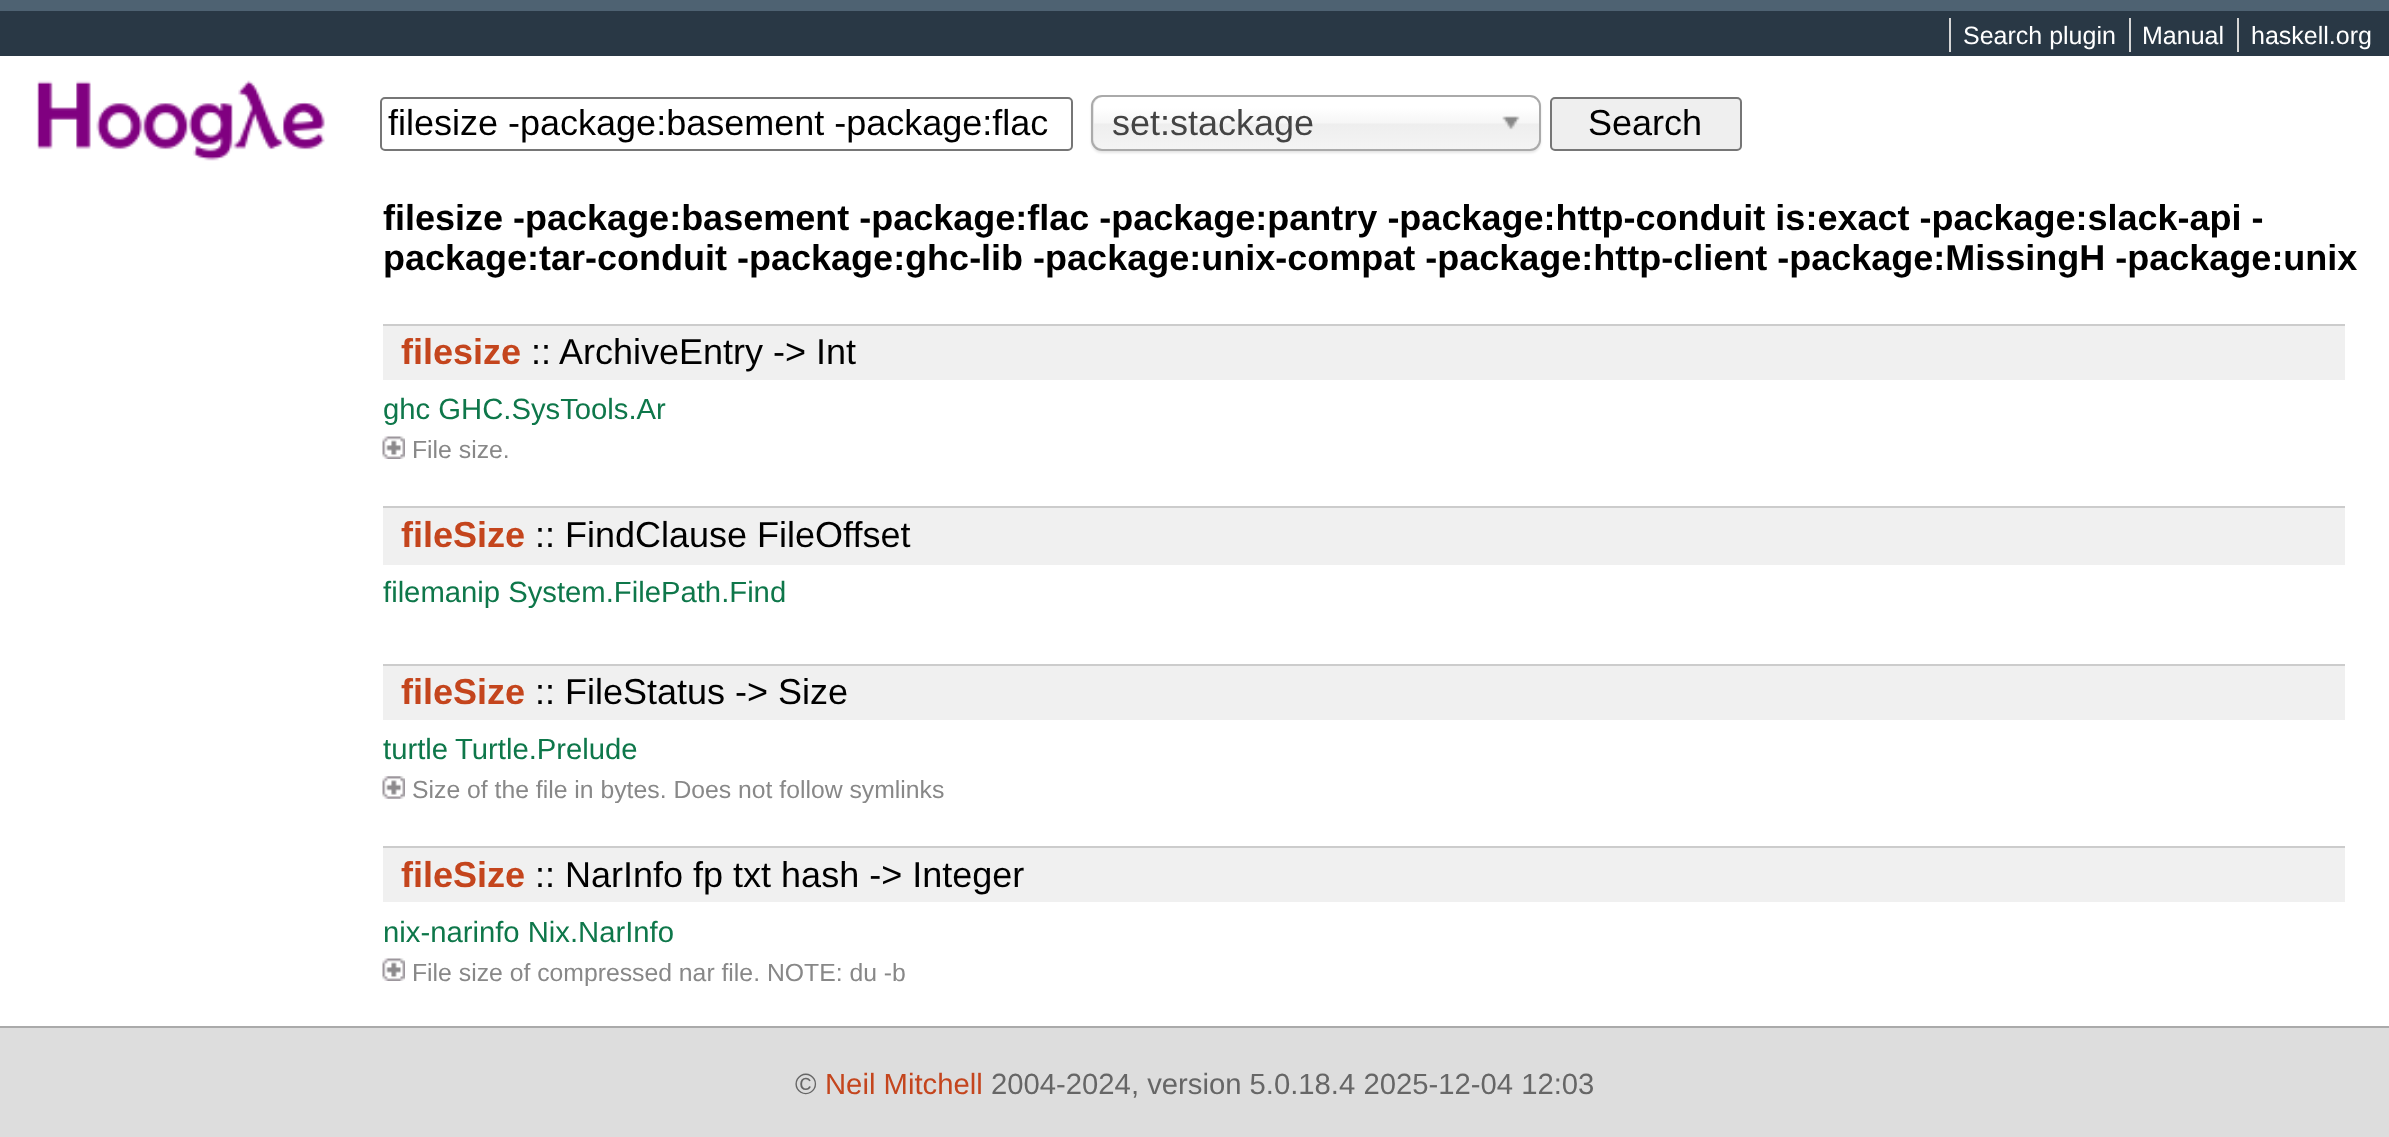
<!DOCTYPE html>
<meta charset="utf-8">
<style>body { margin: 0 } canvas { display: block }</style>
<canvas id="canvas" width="2389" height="1137"></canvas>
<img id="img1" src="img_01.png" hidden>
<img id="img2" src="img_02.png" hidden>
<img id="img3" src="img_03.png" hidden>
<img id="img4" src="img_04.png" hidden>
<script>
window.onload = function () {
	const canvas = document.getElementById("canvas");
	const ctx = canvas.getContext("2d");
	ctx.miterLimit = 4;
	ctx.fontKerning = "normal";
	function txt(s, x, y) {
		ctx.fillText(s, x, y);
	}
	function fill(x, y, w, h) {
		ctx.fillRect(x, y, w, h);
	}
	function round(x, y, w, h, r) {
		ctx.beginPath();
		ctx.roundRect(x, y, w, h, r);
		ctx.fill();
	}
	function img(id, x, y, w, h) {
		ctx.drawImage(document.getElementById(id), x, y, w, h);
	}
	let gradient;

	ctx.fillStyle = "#FFFFFF";
	fill(0, 0, 2389, 1137);
	ctx.fillStyle = "#293845";
	fill(0, 11, 2389, 45);
	ctx.fillStyle = "#4E6272";
	fill(0, 0, 2389, 11);
	ctx.fillStyle = "#D5D5D5";
	fill(1949, 18, 2, 34);
	fill(2129, 18, 2, 34);
	fill(2237, 18, 2, 34);
	img("img1", 37, 80, 288, 81);
	ctx.beginPath();
	ctx.roundRect(381, 98, 691, 52, 4);
	ctx.strokeStyle = "#767676";
	ctx.lineWidth = 2;
	ctx.stroke();
	ctx.fillStyle = "rgba(0, 0, 0, 0.1)";
	ctx.filter = "blur(1px)";
	ctx.beginPath();
	ctx.roundRect(1091, 97, 450, 56, 11);
	ctx.fill();
	ctx.filter = "none";
	gradient = ctx.createLinearGradient(1316, 97, 1316, 149);
	gradient.addColorStop(0.2, "#FFFFFF");
	gradient.addColorStop(0.5, "#F6F6F6");
	gradient.addColorStop(0.52, "#EEEEEE");
	gradient.addColorStop(1, "#F4F4F4");
	ctx.fillStyle = gradient;
	round(1094, 97, 445, 52, 9);
	ctx.beginPath();
	ctx.roundRect(1092, 96, 448, 54, 10);
	ctx.strokeStyle = "#AAAAAA";
	ctx.stroke();
	img("img2", 1502, 116, 18, 14);
	ctx.fillStyle = "#EFEFEF";
	ctx.beginPath();
	ctx.roundRect(1551, 98, 190, 52, 4);
	ctx.fill();
	ctx.strokeStyle = "#767676";
	ctx.stroke();
	ctx.fillStyle = "#F0F0F0";
	fill(383, 326, 1962, 54);
	ctx.fillStyle = "#CCCCCC";
	fill(383, 324, 1962, 2);
	img("img3", 382, 436, 23, 23);
	ctx.fillStyle = "#F0F0F0";
	fill(383, 508, 1962, 57);
	ctx.fillStyle = "#CCCCCC";
	fill(383, 506, 1962, 2);
	ctx.fillStyle = "#F0F0F0";
	fill(383, 666, 1962, 54);
	ctx.fillStyle = "#CCCCCC";
	fill(383, 664, 1962, 2);
	img("img4", 382, 776, 23, 23);
	ctx.fillStyle = "#F0F0F0";
	fill(383, 848, 1962, 54);
	ctx.fillStyle = "#CCCCCC";
	fill(383, 846, 1962, 2);
	img("img3", 382, 958, 23, 23);
	ctx.fillStyle = "#DDDDDD";
	fill(0, 1028, 2389, 109);
	ctx.fillStyle = "#AAAAAA";
	fill(0, 1026, 2389, 2);
	ctx.font = "25px Liberation Sans";
	ctx.fillStyle = "#FFFFFF";
	txt("Search plugin", 1963, 44);
	txt("Manual", 2142, 44);
	txt("haskell.org", 2251, 44);
	ctx.font = "36px Liberation Sans";
	ctx.fillStyle = "#000000";
	txt("filesize -package:basement -package:flac", 388, 135);
	ctx.fillStyle = "#444444";
	txt("set:stackage", 1112, 135);
	ctx.fillStyle = "#000000";
	txt("Search", 1588, 135);
	ctx.font = "bold 36px Liberation Sans";
	txt("filesize -package:basement -package:flac -package:pantry -package:http-conduit is:exact -package:slack-api -", 383, 230);
	txt("package:tar-conduit -package:ghc-lib -package:unix-compat -package:http-client -package:MissingH -package:unix", 383, 270);
	ctx.fillStyle = "#C4451D";
	txt("filesize", 401, 364);
	ctx.font = "36px Liberation Sans";
	ctx.fillStyle = "#000000";
	txt(":: ArchiveEntry -> Int", 531, 364);
	ctx.font = "29.25px Liberation Sans";
	ctx.fillStyle = "#0E774A";
	txt("ghc GHC.SysTools.Ar", 383, 419);
	ctx.font = "24.75px Liberation Sans";
	ctx.fillStyle = "#888888";
	txt("File size.", 412, 458);
	ctx.font = "bold 36px Liberation Sans";
	ctx.fillStyle = "#C4451D";
	txt("fileSize", 401, 547);
	ctx.font = "36px Liberation Sans";
	ctx.fillStyle = "#000000";
	txt(":: FindClause FileOffset", 535, 547);
	ctx.font = "29.25px Liberation Sans";
	ctx.fillStyle = "#0E774A";
	txt("filemanip System.FilePath.Find", 383, 602);
	ctx.font = "bold 36px Liberation Sans";
	ctx.fillStyle = "#C4451D";
	txt("fileSize", 401, 704);
	ctx.font = "36px Liberation Sans";
	ctx.fillStyle = "#000000";
	txt(":: FileStatus -> Size", 535, 704);
	ctx.font = "29.25px Liberation Sans";
	ctx.fillStyle = "#0E774A";
	txt("turtle", 383, 759);
	txt("Turtle.Prelude", 455, 759);
	ctx.save();
	ctx.beginPath();
	ctx.rect(383, 776, 1962, 27);
	ctx.clip();
	ctx.font = "24.75px Liberation Sans";
	ctx.fillStyle = "#888888";
	txt("Size of the file in bytes. Does not follow symlinks", 412, 798);
	ctx.restore();
	ctx.font = "bold 36px Liberation Sans";
	ctx.fillStyle = "#C4451D";
	txt("fileSize", 401, 887);
	ctx.font = "36px Liberation Sans";
	ctx.fillStyle = "#000000";
	txt(":: NarInfo fp txt hash -> Integer", 535, 887);
	ctx.font = "29.25px Liberation Sans";
	ctx.fillStyle = "#0E774A";
	txt("nix-narinfo Nix.NarInfo", 383, 942);
	ctx.save();
	ctx.beginPath();
	ctx.rect(383, 959, 1962, 27);
	ctx.clip();
	ctx.font = "24.75px Liberation Sans";
	ctx.fillStyle = "#888888";
	txt("File size of compressed nar file. NOTE: du -b", 412, 981);
	ctx.restore();
	ctx.fillStyle = "#666666";
	txt("©", 795, 1094);
	ctx.fillStyle = "#C4451D";
	txt("Neil Mitchell", 825, 1094);
	ctx.fillStyle = "#666666";
	txt("2004-2024, version 5.0.18.4 2025-12-04 12:03", 991, 1094);
};
</script>
